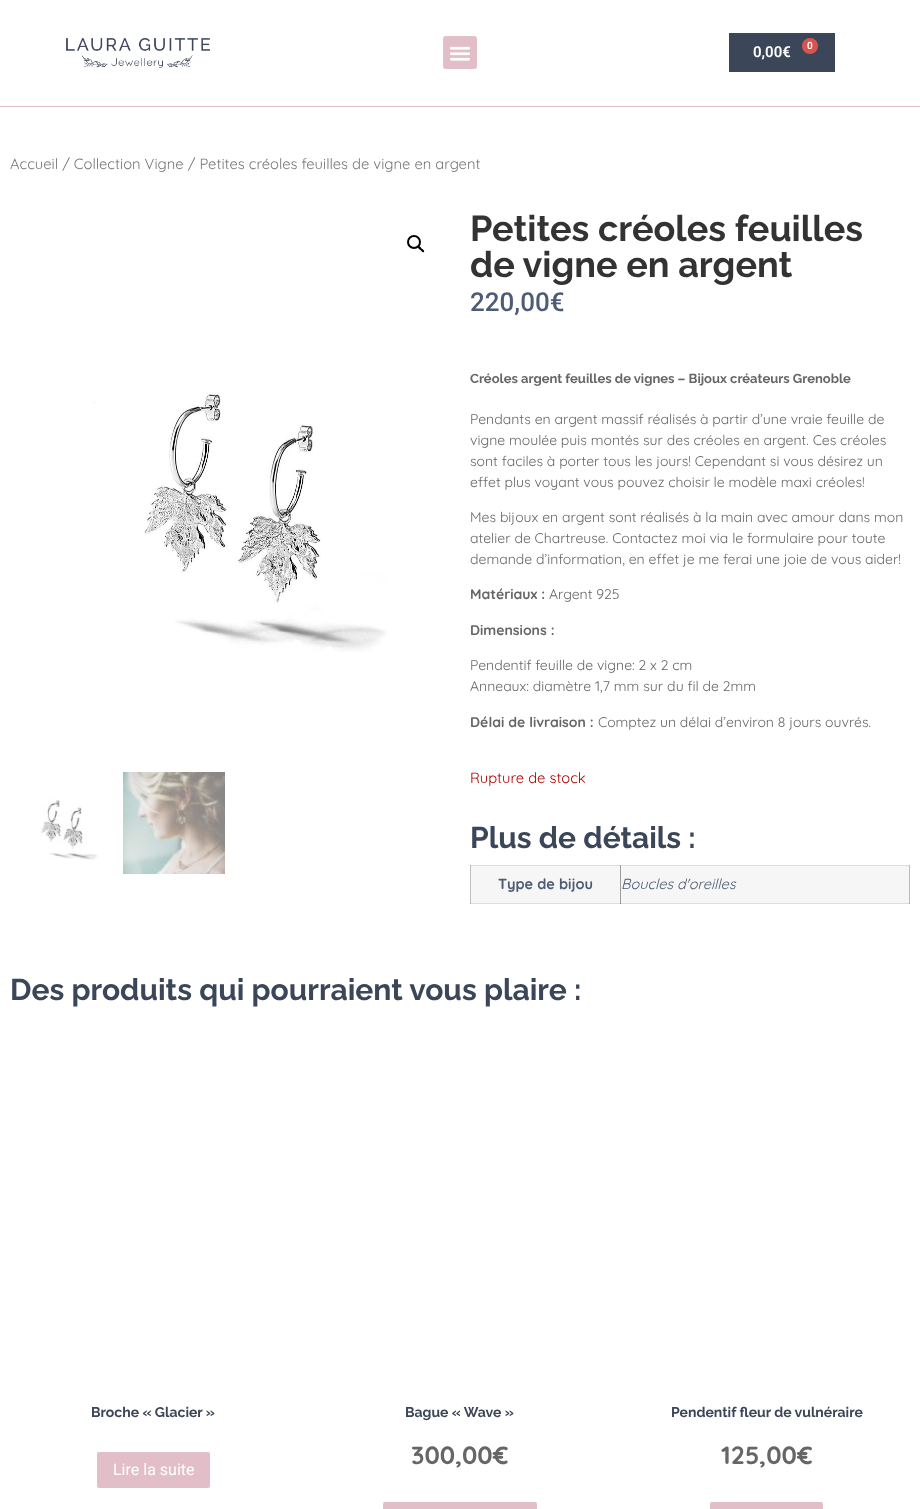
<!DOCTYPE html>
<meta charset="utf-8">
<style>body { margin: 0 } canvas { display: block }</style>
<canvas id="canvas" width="920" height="1509"></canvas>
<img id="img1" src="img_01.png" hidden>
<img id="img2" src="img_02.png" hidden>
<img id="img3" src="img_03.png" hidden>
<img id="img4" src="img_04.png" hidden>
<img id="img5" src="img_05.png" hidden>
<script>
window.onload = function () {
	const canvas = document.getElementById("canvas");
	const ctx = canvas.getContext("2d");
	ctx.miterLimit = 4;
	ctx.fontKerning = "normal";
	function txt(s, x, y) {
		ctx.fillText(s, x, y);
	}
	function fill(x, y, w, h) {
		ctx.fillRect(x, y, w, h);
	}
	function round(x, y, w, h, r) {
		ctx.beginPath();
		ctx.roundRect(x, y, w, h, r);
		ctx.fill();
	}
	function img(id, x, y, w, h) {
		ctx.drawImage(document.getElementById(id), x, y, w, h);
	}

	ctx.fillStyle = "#FFFFFF";
	fill(0, 0, 920, 1509);
	ctx.fillStyle = "#C0C0C0";
	fill(470, 865, 1, 39);
	ctx.fillStyle = "#B3B3B3";
	fill(470, 903, 1, 1);
	fill(470, 865, 1, 1);
	ctx.fillStyle = "#E2BFC8";
	fill(0, 106, 920, 1);
	img("img1", 66, 38, 144, 30);
	round(443, 36, 34, 33, 3);
	img("img2", 450, 46, 20, 15);
	ctx.fillStyle = "#3C4659";
	fill(729, 33, 106, 39);
	ctx.fillStyle = "#D9534F";
	ctx.beginPath();
	ctx.arc(810, 46, 8, 0, Math.PI * 2);
	ctx.fill();
	ctx.beginPath();
	ctx.arc(414, 242, 6, 0, Math.PI * 2);
	ctx.strokeStyle = "#000000";
	ctx.lineWidth = 2;
	ctx.stroke();
	ctx.fillStyle = "#000000";
	ctx.beginPath();
	ctx.moveTo(418, 246.5);
	ctx.bezierCurveTo(419.5, 245, 421, 248, 421.5, 248.5);
	ctx.bezierCurveTo(422.5, 249, 425, 251, 424, 252);
	ctx.bezierCurveTo(422.5, 253, 421, 250.5, 420.5, 250);
	ctx.bezierCurveTo(419.5, 249.5, 417, 247.5, 418, 246.5);
	ctx.closePath();
	ctx.fill();
	img("img3", 93, 392, 294, 260);
	img("img4", 40, 799, 58, 61);
	img("img5", 123, 772, 102, 102);
	ctx.fillStyle = "#F6F6F6";
	fill(471, 866, 149, 37);
	ctx.fillStyle = "#DDDDDD";
	fill(471, 903, 439, 1);
	ctx.fillStyle = "#9E9E9E";
	fill(620, 865, 1, 39);
	ctx.fillStyle = "#898989";
	fill(620, 903, 1, 1);
	ctx.fillStyle = "#DDDDDD";
	fill(471, 865, 150, 1);
	ctx.fillStyle = "#989898";
	fill(620, 865, 1, 1);
	ctx.fillStyle = "#F6F6F6";
	fill(621, 866, 288, 37);
	ctx.fillStyle = "#BBBBBB";
	fill(909, 865, 1, 39);
	ctx.fillStyle = "#A8A8A8";
	fill(909, 903, 1, 1);
	ctx.fillStyle = "#DDDDDD";
	fill(621, 865, 289, 1);
	ctx.fillStyle = "#AFAFAF";
	fill(909, 865, 1, 1);
	ctx.fillStyle = "#E2BFC8";
	ctx.beginPath();
	ctx.roundRect(96.5, 1451.5, 114, 37, 2.5);
	ctx.fill();
	ctx.strokeStyle = "#FFFFFF";
	ctx.lineWidth = 1;
	ctx.stroke();
	ctx.beginPath();
	ctx.roundRect(382.5, 1501.5, 155, 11, 2.5);
	ctx.fill();
	ctx.stroke();
	ctx.beginPath();
	ctx.roundRect(709.5, 1501.5, 114, 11, 2.5);
	ctx.fill();
	ctx.stroke();
	ctx.font = "600 15px Roboto";
	ctx.fillStyle = "#FFFFFF";
	txt("0,00€", 753, 57);
	ctx.font = "600 10px Roboto";
	txt("0", 807, 49);
	ctx.font = "14.75px Quicksand";
	ctx.fillStyle = "#767676";
	txt("Accueil / Collection Vigne / Petites créoles feuilles de vigne en argent", 10, 169);
	ctx.font = "bold 36px Raleway";
	ctx.fillStyle = "#333333";
	txt("Petites créoles feuilles", 470, 241);
	txt("de vigne en argent", 470, 277);
	ctx.font = "500 26px Roboto";
	ctx.fillStyle = "#4D5B75";
	txt("220,00€", 470, 311);
	ctx.font = "bold 13px Raleway";
	ctx.fillStyle = "#666666";
	txt("Créoles argent feuilles de vignes – Bijoux créateurs Grenoble", 470, 383);
	ctx.font = "14px Quicksand";
	txt("Pendants en argent massif réalisés à partir d’une vraie feuille de", 470, 424);
	txt("vigne moulée puis montés sur des créoles en argent. Ces créoles", 470, 445);
	txt("sont faciles à porter tous les jours! Cependant si vous désirez un", 470, 466);
	txt("effet plus voyant vous pouvez choisir le modèle maxi créoles!", 470, 487);
	txt("Mes bijoux en argent sont réalisés à la main avec amour dans mon", 470, 522);
	txt("atelier de Chartreuse. Contactez moi via le formulaire pour toute", 470, 543);
	txt("demande d’information, en effet je me ferai une joie de vous aider!", 470, 564);
	ctx.font = "bold 14px Quicksand";
	txt("Matériaux :", 470, 599);
	ctx.font = "14px Quicksand";
	txt("Argent 925", 549, 599);
	ctx.font = "bold 14px Quicksand";
	txt("Dimensions :", 470, 635);
	ctx.font = "14px Quicksand";
	txt("Pendentif feuille de vigne: 2 x 2 cm", 470, 670);
	txt("Anneaux: diamètre 1,7 mm sur du fil de 2mm", 470, 691);
	ctx.font = "bold 14px Quicksand";
	txt("Délai de livraison :", 470, 727);
	ctx.font = "14px Quicksand";
	txt("Comptez un délai d’environ 8 jours ouvrés.", 598, 727);
	ctx.font = "14.75px Quicksand";
	ctx.fillStyle = "#AA0000";
	txt("Rupture de stock", 470, 783);
	ctx.font = "bold 30px Raleway";
	ctx.fillStyle = "#3C4659";
	txt("Plus de détails :", 470, 848);
	ctx.font = "bold 14.5px Quicksand";
	ctx.fillStyle = "#4D5B75";
	txt("Type de bijou", 498, 889);
	ctx.font = "italic 14.5px Quicksand";
	txt("Boucles d'oreilles", 621, 889);
	ctx.font = "bold 30px Raleway";
	ctx.fillStyle = "#3C4659";
	txt("Des produits qui pourraient vous plaire :", 10, 1000);
	ctx.font = "bold 14px Raleway";
	txt("Broche « Glacier »", 91, 1417);
	ctx.font = "16px Roboto";
	ctx.fillStyle = "#FFFFFF";
	txt("Lire la suite", 113, 1475);
	ctx.font = "bold 14px Raleway";
	ctx.fillStyle = "#3C4659";
	txt("Bague « Wave »", 405, 1417);
	ctx.font = "bold 25px Quicksand";
	ctx.fillStyle = "#666666";
	txt("300,00€", 411, 1464);
	ctx.font = "bold 14px Raleway";
	ctx.fillStyle = "#3C4659";
	txt("Pendentif fleur de vulnéraire", 671, 1417);
	ctx.font = "bold 25px Quicksand";
	ctx.fillStyle = "#666666";
	txt("125,00€", 721, 1464);
};
</script>
